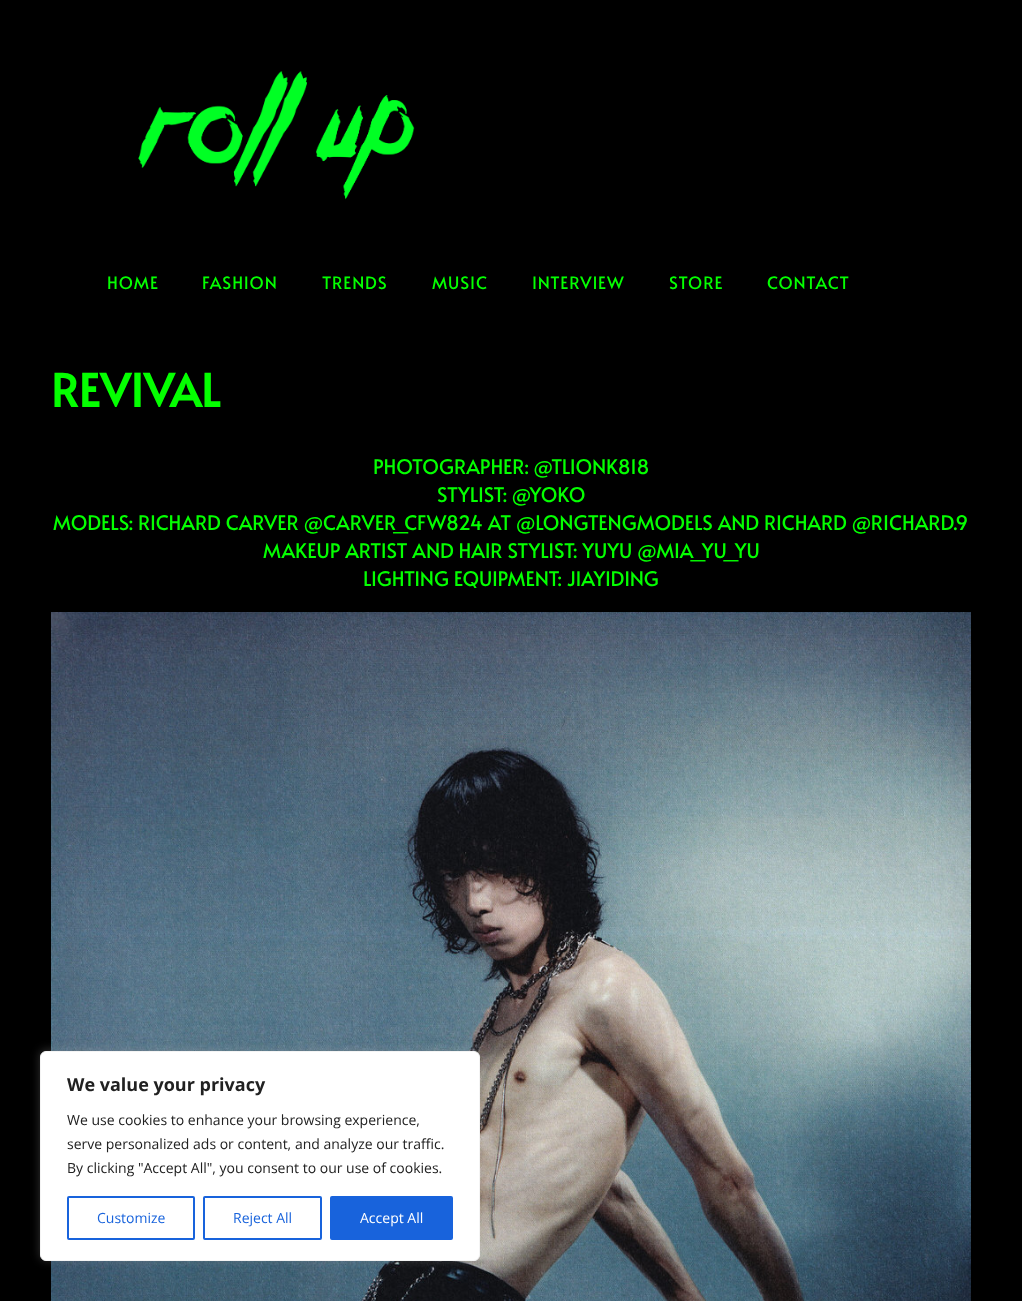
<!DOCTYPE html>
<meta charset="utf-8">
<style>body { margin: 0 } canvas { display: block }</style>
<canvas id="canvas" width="1022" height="1301"></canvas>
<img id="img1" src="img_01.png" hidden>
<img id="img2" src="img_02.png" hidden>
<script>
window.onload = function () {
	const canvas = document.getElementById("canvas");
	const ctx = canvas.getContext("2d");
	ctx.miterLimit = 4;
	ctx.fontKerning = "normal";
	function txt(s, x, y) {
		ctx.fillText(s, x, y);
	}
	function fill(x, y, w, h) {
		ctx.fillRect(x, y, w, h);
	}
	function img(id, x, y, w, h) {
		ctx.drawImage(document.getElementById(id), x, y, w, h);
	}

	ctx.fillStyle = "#000000";
	fill(0, 0, 1022, 1301);
	img("img1", 138, 71, 277, 129);
	img("img2", 51, 612, 920, 689);
	ctx.fillStyle = "rgba(172, 171, 171, 0.3)";
	ctx.filter = "blur(5px)";
	ctx.beginPath();
	ctx.roundRect(40, 1050, 440, 210, 6);
	ctx.fill();
	ctx.filter = "none";
	ctx.fillStyle = "#FFFFFF";
	ctx.beginPath();
	ctx.roundRect(40.5, 1051.5, 439, 209, 5.5);
	ctx.fill();
	ctx.strokeStyle = "#F4F4F4";
	ctx.stroke();
	ctx.beginPath();
	ctx.roundRect(68, 1197, 126, 42, 1);
	ctx.strokeStyle = "#1863DC";
	ctx.lineWidth = 2;
	ctx.stroke();
	ctx.beginPath();
	ctx.roundRect(204, 1197, 117, 42, 1);
	ctx.stroke();
	ctx.fillStyle = "#1863DC";
	ctx.beginPath();
	ctx.roundRect(331, 1197, 121, 42, 1);
	ctx.fill();
	ctx.stroke();
	ctx.letterSpacing = "1px";
	ctx.font = "17px Alata";
	ctx.fillStyle = "#04FF00";
	txt("HOME", 107, 289);
	txt("FASHION", 202, 289);
	txt("TRENDS", 322, 289);
	txt("MUSIC", 432, 289);
	txt("INTERVIEW", 532, 289);
	txt("STORE", 669, 289);
	txt("CONTACT", 767, 289);
	ctx.letterSpacing = "0.5px";
	ctx.font = "bold 45px Alata";
	txt("REVIVAL", 51, 407);
	ctx.letterSpacing = "0px";
	ctx.font = "20px Alata";
	txt("PHOTOGRAPHER: @TLIONK818", 373, 474);
	txt("STYLIST: @YOKO", 437, 502);
	txt("MODELS: RICHARD CARVER @CARVER_CFW824 AT @LONGTENGMODELS AND RICHARD @R1CHARD.9", 53, 530);
	txt("MAKEUP ARTIST AND HAIR STYLIST: YUYU @MIA_YU_YU", 263, 558);
	txt("LIGHTING EQUIPMENT: JIAYIDING", 363, 586);
	ctx.font = "bold 18px Open Sans";
	ctx.fillStyle = "#212121";
	txt("We value your privacy", 67, 1091);
	ctx.font = "14px Open Sans";
	txt("We use cookies to enhance your browsing experience,", 67, 1125);
	txt("serve personalized ads or content, and analyze our traffic.", 67, 1149);
	txt("By clicking \"Accept All\", you consent to our use of cookies.", 67, 1173);
	ctx.fillStyle = "#1863DC";
	txt("Customize", 97, 1223);
	txt("Reject All", 233, 1223);
	ctx.fillStyle = "#FFFFFF";
	txt("Accept All", 360, 1223);
};
</script>
